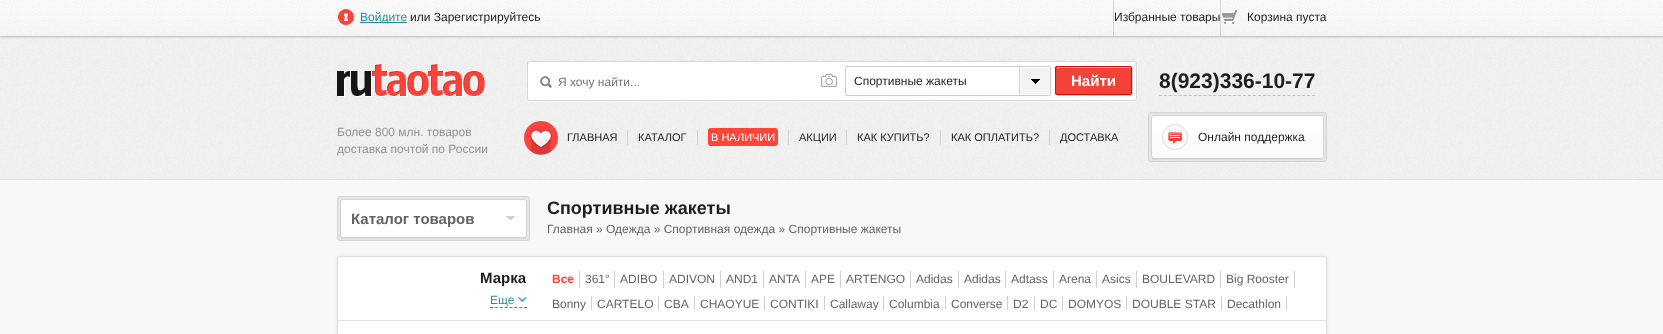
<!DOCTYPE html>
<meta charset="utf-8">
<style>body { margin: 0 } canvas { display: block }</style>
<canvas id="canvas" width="1663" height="334"></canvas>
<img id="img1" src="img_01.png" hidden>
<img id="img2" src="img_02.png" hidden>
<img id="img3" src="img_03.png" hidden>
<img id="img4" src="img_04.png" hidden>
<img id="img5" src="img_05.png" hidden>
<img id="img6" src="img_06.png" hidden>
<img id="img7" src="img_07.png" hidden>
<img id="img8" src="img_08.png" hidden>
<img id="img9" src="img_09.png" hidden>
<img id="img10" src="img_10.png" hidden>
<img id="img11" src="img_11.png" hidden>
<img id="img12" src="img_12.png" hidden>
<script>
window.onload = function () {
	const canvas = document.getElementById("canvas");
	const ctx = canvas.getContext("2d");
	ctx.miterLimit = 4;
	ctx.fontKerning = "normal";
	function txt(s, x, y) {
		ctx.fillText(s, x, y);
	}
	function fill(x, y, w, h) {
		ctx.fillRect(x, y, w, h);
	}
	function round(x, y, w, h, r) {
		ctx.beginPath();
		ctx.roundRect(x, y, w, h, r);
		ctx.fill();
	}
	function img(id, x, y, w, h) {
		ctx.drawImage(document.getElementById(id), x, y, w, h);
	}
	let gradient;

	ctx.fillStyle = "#F8F8F8";
	fill(0, 0, 1663, 334);
	img("img1", 0, 37, 1663, 142);
	ctx.fillStyle = "#E0E0E0";
	fill(0, 179, 1663, 1);
	ctx.fillStyle = "rgba(204, 204, 204, 0.5)";
	ctx.filter = "blur(0.5px)";
	ctx.beginPath();
	ctx.rect(1, 1, 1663, 37);
	ctx.fill();
	ctx.filter = "none";
	img("img2", 0, 0, 1663, 36);
	ctx.fillStyle = "#CCCCCC";
	fill(0, 36, 1663, 1);
	img("img3", 338, 9, 16, 16);
	ctx.fillStyle = "#24909A";
	fill(360, 22, 47, 1);
	ctx.fillStyle = "#D6D6D6";
	fill(1113, 0, 1, 36);
	fill(1220, 0, 1, 36);
	img("img4", 1222, 10, 15, 14);
	img("img5", 337, 64, 149, 33);
	ctx.fillStyle = "rgba(255, 255, 255, 0.7)";
	ctx.beginPath();
	ctx.moveTo(527, 98);
	ctx.lineTo(527, 99);
	ctx.bezierCurveTo(527, 101, 528, 102, 530, 102);
	ctx.lineTo(1134, 102);
	ctx.bezierCurveTo(1136, 102, 1137, 101, 1137, 99);
	ctx.lineTo(1137, 98);
	ctx.bezierCurveTo(1137, 100, 1136, 101, 1134, 101);
	ctx.lineTo(530, 101);
	ctx.bezierCurveTo(528, 101, 527, 100, 527, 98);
	ctx.closePath();
	ctx.fill();
	ctx.fillStyle = "#FFFFFF";
	ctx.beginPath();
	ctx.roundRect(527.5, 61.5, 609, 39, 2.5);
	ctx.fill();
	ctx.strokeStyle = "#D7D7D7";
	ctx.stroke();
	img("img6", 540, 76, 12, 12);
	img("img7", 821, 74, 16, 13);
	ctx.beginPath();
	ctx.roundRect(845.5, 66.5, 205, 29, 1.5);
	ctx.strokeStyle = "#CBCBCB";
	ctx.stroke();
	ctx.fillStyle = "#D0D0D0";
	fill(1019, 67, 1, 28);
	ctx.fillStyle = "#F3F3F3";
	ctx.beginPath();
	ctx.roundRect(1020, 67, 30, 28, [0, 1, 1, 0]);
	ctx.fill();
	img("img8", 1031, 79, 9, 5);
	ctx.save();
	ctx.beginPath();
	ctx.rect(1020, 67, 30, 28);
	ctx.clip();
	ctx.fillStyle = "#FFFFFF";
	ctx.beginPath();
	ctx.moveTo(921, 95);
	ctx.lineTo(921, 67);
	ctx.lineTo(1019, 67);
	ctx.lineTo(1019, 94);
	ctx.lineTo(1049, 94);
	ctx.lineTo(1049, 67);
	ctx.bezierCurveTo(1050, 67, 1050, 67, 1050, 68);
	ctx.lineTo(1050, 94);
	ctx.bezierCurveTo(1050, 95, 1050, 95, 1049, 95);
	ctx.closePath();
	ctx.fill();
	ctx.beginPath();
	ctx.moveTo(1021, 68);
	ctx.lineTo(1021, 95);
	ctx.lineTo(921, 95);
	ctx.lineTo(921, 67);
	ctx.lineTo(1049, 67);
	ctx.lineTo(1050, 68);
	ctx.closePath();
	ctx.fill();
	ctx.restore();
	ctx.fillStyle = "#C9C9C9";
	ctx.filter = "blur(0.5px)";
	ctx.beginPath();
	ctx.roundRect(1056, 67, 77, 29, 2);
	ctx.fill();
	ctx.filter = "none";
	ctx.fillStyle = "#F34238";
	round(1055, 66, 77, 29, 2);
	ctx.fillStyle = "#F9A19C";
	ctx.beginPath();
	ctx.moveTo(1057, 68);
	ctx.lineTo(1131, 68);
	ctx.lineTo(1131, 69);
	ctx.bezierCurveTo(1131, 68, 1131, 67, 1130, 67);
	ctx.lineTo(1057, 67);
	ctx.lineTo(1056, 69);
	ctx.bezierCurveTo(1056, 68, 1056, 68, 1057, 68);
	ctx.closePath();
	ctx.fill();
	ctx.beginPath();
	ctx.roundRect(1055.5, 66.5, 76, 28, 1.5);
	ctx.strokeStyle = "#CE150B";
	ctx.stroke();
	img("img9", 524, 121, 34, 34);
	ctx.fillStyle = "#D1D1D1";
	fill(627, 130, 1, 15);
	fill(697, 130, 1, 15);
	fill(788, 130, 1, 15);
	ctx.fillStyle = "#FE4438";
	round(708, 128, 70, 18, 3);
	ctx.fillStyle = "#D1D1D1";
	fill(846, 130, 1, 15);
	fill(940, 130, 1, 15);
	fill(1049, 130, 1, 15);
	ctx.beginPath();
	ctx.moveTo(1159, 95.5);
	ctx.lineTo(1315, 95.5);
	ctx.strokeStyle = "#C1C1C1";
	ctx.setLineDash([3, 1.94]);
	ctx.stroke();
	ctx.fillStyle = "#E6E6E6";
	ctx.beginPath();
	ctx.roundRect(1148.5, 112.5, 178, 49, 2.5);
	ctx.fill();
	ctx.strokeStyle = "#D4D4D4";
	ctx.setLineDash([]);
	ctx.stroke();
	ctx.fillStyle = "rgba(206, 206, 206, 0.5)";
	ctx.filter = "blur(0.5px)";
	ctx.beginPath();
	ctx.roundRect(1151, 116, 173, 44, 3);
	ctx.fill();
	ctx.filter = "none";
	ctx.save();
	ctx.beginPath();
	ctx.roundRect(1151, 115, 173, 44, 3);
	ctx.clip();
	gradient = ctx.createLinearGradient(1238, 116, 1238, 158);
	gradient.addColorStop(0.2, "#FFFFFF");
	gradient.addColorStop(0.5, "#FDFDFD");
	gradient.addColorStop(0.52, "#FDFDFD");
	gradient.addColorStop(1, "#FAFAFA");
	ctx.fillStyle = gradient;
	fill(1151, 116, 173, 42);
	ctx.restore();
	ctx.beginPath();
	ctx.roundRect(1151.5, 115.5, 172, 43, 2.5);
	ctx.stroke();
	img("img10", 1162, 124, 26, 26);
	ctx.fillStyle = "#E6E6E6";
	ctx.beginPath();
	ctx.roundRect(337.5, 196.5, 192, 44, 2.5);
	ctx.fill();
	ctx.stroke();
	ctx.fillStyle = "rgba(206, 206, 206, 0.5)";
	ctx.filter = "blur(0.5px)";
	ctx.beginPath();
	ctx.roundRect(340, 200, 187, 39, 3);
	ctx.fill();
	ctx.filter = "none";
	ctx.fillStyle = "#FFFFFF";
	ctx.beginPath();
	ctx.roundRect(340.5, 199.5, 186, 38, 2.5);
	ctx.fill();
	ctx.stroke();
	img("img11", 506, 216, 9, 4);
	ctx.fillStyle = "rgba(220, 220, 220, 0.5)";
	ctx.filter = "blur(2.5px)";
	ctx.beginPath();
	ctx.roundRect(337, 256, 990, 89, 3);
	ctx.fill();
	ctx.filter = "none";
	ctx.fillStyle = "#FFFFFF";
	ctx.beginPath();
	ctx.roundRect(337.5, 256.5, 989, 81, 2.5);
	ctx.fill();
	ctx.strokeStyle = "#DCDCDC";
	ctx.stroke();
	ctx.beginPath();
	ctx.moveTo(490, 307.5);
	ctx.lineTo(527, 307.5);
	ctx.strokeStyle = "#24909A";
	ctx.setLineDash([3, 1.86]);
	ctx.stroke();
	img("img12", 518, 297, 9, 5);
	ctx.fillStyle = "#E0E0E0";
	fill(337, 320, 989, 1);
	ctx.fillStyle = "#D0D0D0";
	fill(579, 271, 1, 17);
	fill(614, 271, 1, 17);
	fill(663, 271, 1, 17);
	fill(720, 271, 1, 17);
	fill(763, 271, 1, 17);
	fill(805, 271, 1, 17);
	fill(840, 271, 1, 17);
	fill(910, 271, 1, 17);
	fill(958, 271, 1, 17);
	fill(1005, 271, 1, 17);
	fill(1053, 271, 1, 17);
	fill(1096, 271, 1, 17);
	fill(1136, 271, 1, 17);
	fill(1220, 271, 1, 17);
	fill(1294, 271, 1, 17);
	fill(591, 296, 1, 14);
	fill(658, 296, 1, 14);
	fill(694, 296, 1, 14);
	fill(764, 296, 1, 14);
	fill(824, 296, 1, 14);
	fill(883, 296, 1, 14);
	fill(945, 296, 1, 14);
	fill(1007, 296, 1, 14);
	fill(1034, 296, 1, 14);
	fill(1062, 296, 1, 14);
	fill(1126, 296, 1, 14);
	fill(1221, 296, 1, 14);
	fill(1286, 296, 1, 14);
	ctx.font = "12px Liberation Sans";
	ctx.fillStyle = "#24909A";
	txt("Войдите", 360, 21);
	ctx.fillStyle = "#1E1E1E";
	txt("или Зарегистрируйтесь", 410, 21);
	txt("Избранные товары", 1114, 21);
	txt("Корзина пуста", 1247, 21);
	ctx.fillStyle = "#929292";
	txt("Более 800 млн. товаров", 337, 136);
	txt("доставка почтой по России", 337, 153);
	ctx.fillStyle = "#757575";
	txt("Я хочу найти...", 558, 86);
	ctx.fillStyle = "#1E1E1E";
	txt("Спортивные жакеты", 854, 85);
	ctx.font = "bold 15px Liberation Sans";
	ctx.fillStyle = "#FFFFFF";
	txt("Найти", 1071, 86);
	ctx.font = "11px Liberation Sans";
	ctx.fillStyle = "#1E1E1E";
	txt("ГЛАВНАЯ", 567, 141);
	txt("КАТАЛОГ", 638, 141);
	ctx.fillStyle = "#FFFFFF";
	txt("В НАЛИЧИИ", 711, 141);
	ctx.fillStyle = "#1E1E1E";
	txt("АКЦИИ", 799, 141);
	txt("КАК КУПИТЬ?", 857, 141);
	txt("КАК ОПЛАТИТЬ?", 951, 141);
	txt("ДОСТАВКА", 1060, 141);
	ctx.font = "bold 21px Liberation Sans";
	txt("8(923)336-10-77", 1159, 88);
	ctx.font = "12px Liberation Sans";
	txt("Онлайн поддержка", 1198, 141);
	ctx.font = "bold 15px Liberation Sans";
	ctx.fillStyle = "#646464";
	txt("Каталог товаров", 351, 224);
	ctx.font = "bold 18px Liberation Sans";
	ctx.fillStyle = "#1E1E1E";
	txt("Спортивные жакеты", 547, 214);
	ctx.font = "12px Liberation Sans";
	ctx.fillStyle = "#646464";
	txt("Главная » Одежда » Спортивная одежда » Спортивные жакеты", 547, 233);
	ctx.font = "bold 15px Liberation Sans";
	ctx.fillStyle = "#1E1E1E";
	txt("Марка", 480, 283);
	ctx.font = "12px Liberation Sans";
	ctx.fillStyle = "#24909A";
	txt("Еще", 490, 304);
	ctx.font = "bold 12px Liberation Sans";
	ctx.fillStyle = "#FD4238";
	txt("Все", 552, 283);
	ctx.font = "12px Liberation Sans";
	ctx.fillStyle = "#646464";
	txt("361°", 585, 283);
	txt("ADIBO", 620, 283);
	txt("ADIVON", 669, 283);
	txt("AND1", 726, 283);
	txt("ANTA", 769, 283);
	txt("APE", 811, 283);
	txt("ARTENGO", 846, 283);
	txt("Adidas", 916, 283);
	txt("Adidas", 964, 283);
	txt("Adtass", 1011, 283);
	txt("Arena", 1059, 283);
	txt("Asics", 1102, 283);
	txt("BOULEVARD", 1142, 283);
	txt("Big Rooster", 1226, 283);
	txt("Bonny", 552, 308);
	txt("CARTELO", 597, 308);
	txt("CBA", 664, 308);
	txt("CHAOYUE", 700, 308);
	txt("CONTIKI", 770, 308);
	ctx.save();
	ctx.beginPath();
	ctx.rect(547, 267, 759, 43);
	ctx.clip();
	txt("Callaway", 830, 308);
	ctx.restore();
	txt("Columbia", 889, 308);
	txt("Converse", 951, 308);
	txt("D2", 1013, 308);
	txt("DC", 1040, 308);
	txt("DOMYOS", 1068, 308);
	txt("DOUBLE STAR", 1132, 308);
	txt("Decathlon", 1227, 308);
};
</script>
